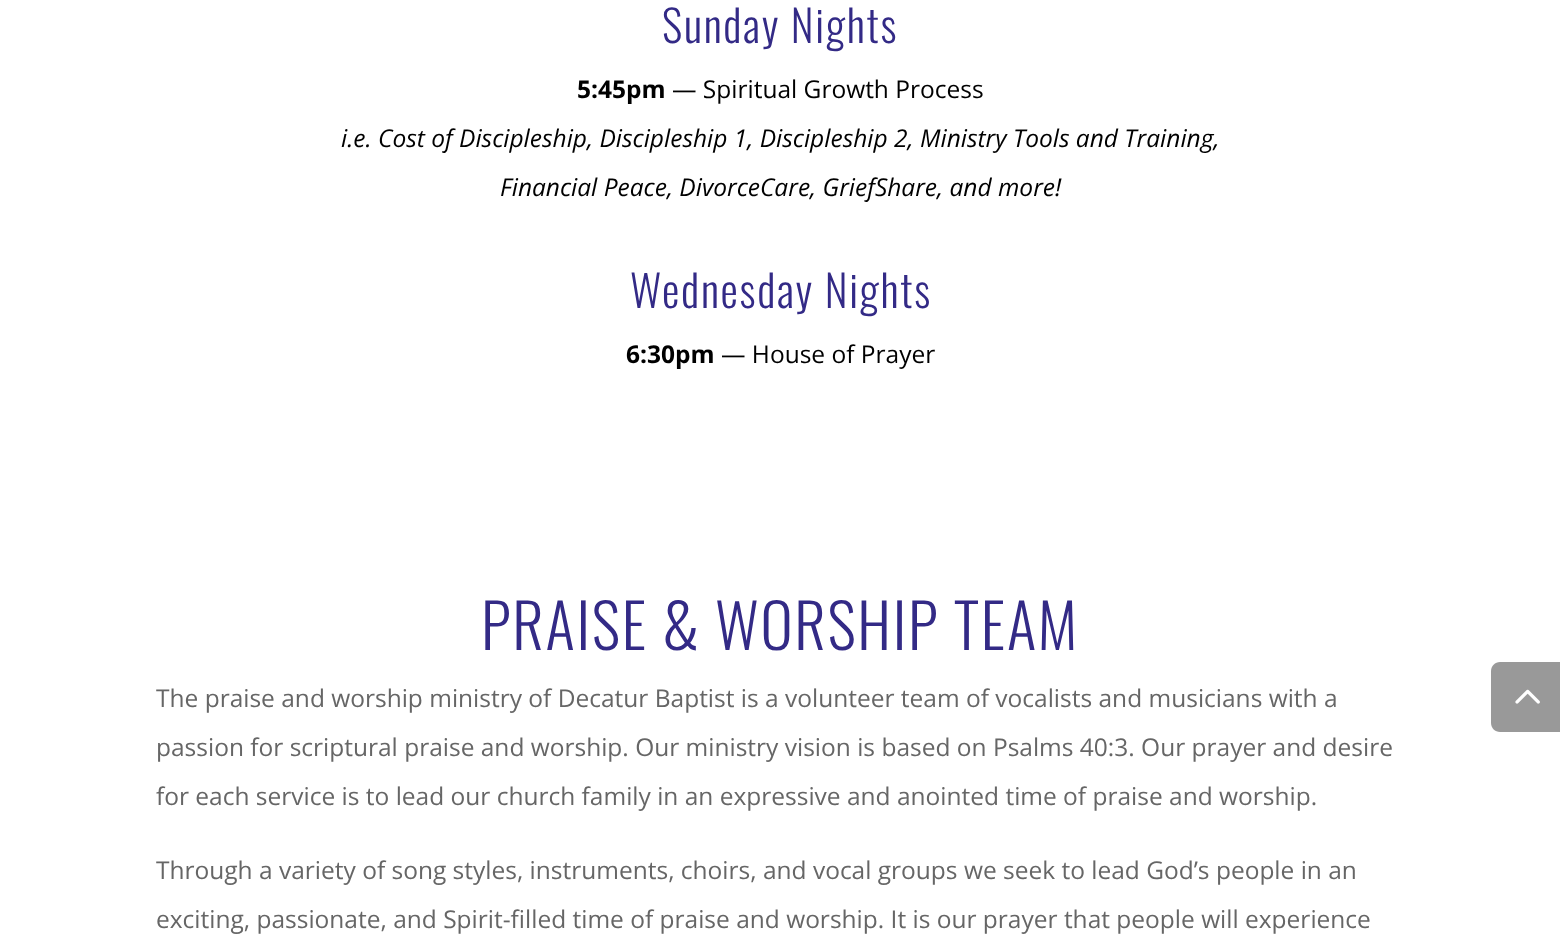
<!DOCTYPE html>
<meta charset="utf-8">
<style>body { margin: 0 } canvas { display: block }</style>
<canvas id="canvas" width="1560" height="950"></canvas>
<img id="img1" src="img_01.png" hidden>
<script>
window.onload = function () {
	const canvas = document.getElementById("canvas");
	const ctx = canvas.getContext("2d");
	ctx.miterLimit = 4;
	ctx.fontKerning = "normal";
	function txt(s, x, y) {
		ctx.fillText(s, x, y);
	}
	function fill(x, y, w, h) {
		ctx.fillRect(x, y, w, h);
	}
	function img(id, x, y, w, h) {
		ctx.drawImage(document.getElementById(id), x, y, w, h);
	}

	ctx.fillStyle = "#FFFFFF";
	fill(0, 0, 1560, 950);
	ctx.fillStyle = "#999999";
	ctx.beginPath();
	ctx.moveTo(1500, 662);
	ctx.lineTo(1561, 662);
	ctx.lineTo(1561, 732);
	ctx.lineTo(1500, 732);
	ctx.bezierCurveTo(1495, 732, 1491, 728, 1491, 723);
	ctx.lineTo(1491, 671);
	ctx.bezierCurveTo(1491, 666, 1495, 662, 1500, 662);
	ctx.closePath();
	ctx.fill();
	img("img1", 1515, 689, 25, 15);
	ctx.letterSpacing = "1.75px";
	ctx.font = "300 43.75px Oswald";
	ctx.fillStyle = "#332A86";
	txt("Sunday Nights", 662, 43);
	ctx.letterSpacing = "0px";
	ctx.font = "bold 24.5px Open Sans";
	ctx.fillStyle = "#000000";
	txt("5:45pm", 577, 98);
	ctx.font = "24.5px Open Sans";
	txt("— Spiritual Growth Process", 672, 98);
	ctx.font = "italic 24.5px Open Sans";
	txt("i.e. Cost of Discipleship, Discipleship 1, Discipleship 2, Ministry Tools and Training,", 341, 147);
	txt("Financial Peace, DivorceCare, GriefShare, and more!", 500, 196);
	ctx.letterSpacing = "1.75px";
	ctx.font = "300 43.75px Oswald";
	ctx.fillStyle = "#332A86";
	txt("Wednesday Nights", 630, 308);
	ctx.letterSpacing = "0px";
	ctx.font = "bold 24.5px Open Sans";
	ctx.fillStyle = "#000000";
	txt("6:30pm", 626, 363);
	ctx.font = "24.5px Open Sans";
	txt("— House of Prayer", 721, 363);
	ctx.letterSpacing = "1.75px";
	ctx.font = "300 61.25px Oswald";
	ctx.fillStyle = "#332A86";
	txt("PRAISE & WORSHIP TEAM", 481, 650);
	ctx.letterSpacing = "0px";
	ctx.font = "24.5px Open Sans";
	ctx.fillStyle = "#666666";
	txt("The praise and worship ministry of Decatur Baptist is a volunteer team of vocalists and musicians with a", 156, 707);
	txt("passion for scriptural praise and worship. Our ministry vision is based on Psalms 40:3. Our prayer and desire", 156, 756);
	txt("for each service is to lead our church family in an expressive and anointed time of praise and worship.", 156, 805);
	txt("Through a variety of song styles, instruments, choirs, and vocal groups we seek to lead God’s people in an", 156, 879);
	txt("exciting, passionate, and Spirit-filled time of praise and worship. It is our prayer that people will experience", 156, 928);
};
</script>
